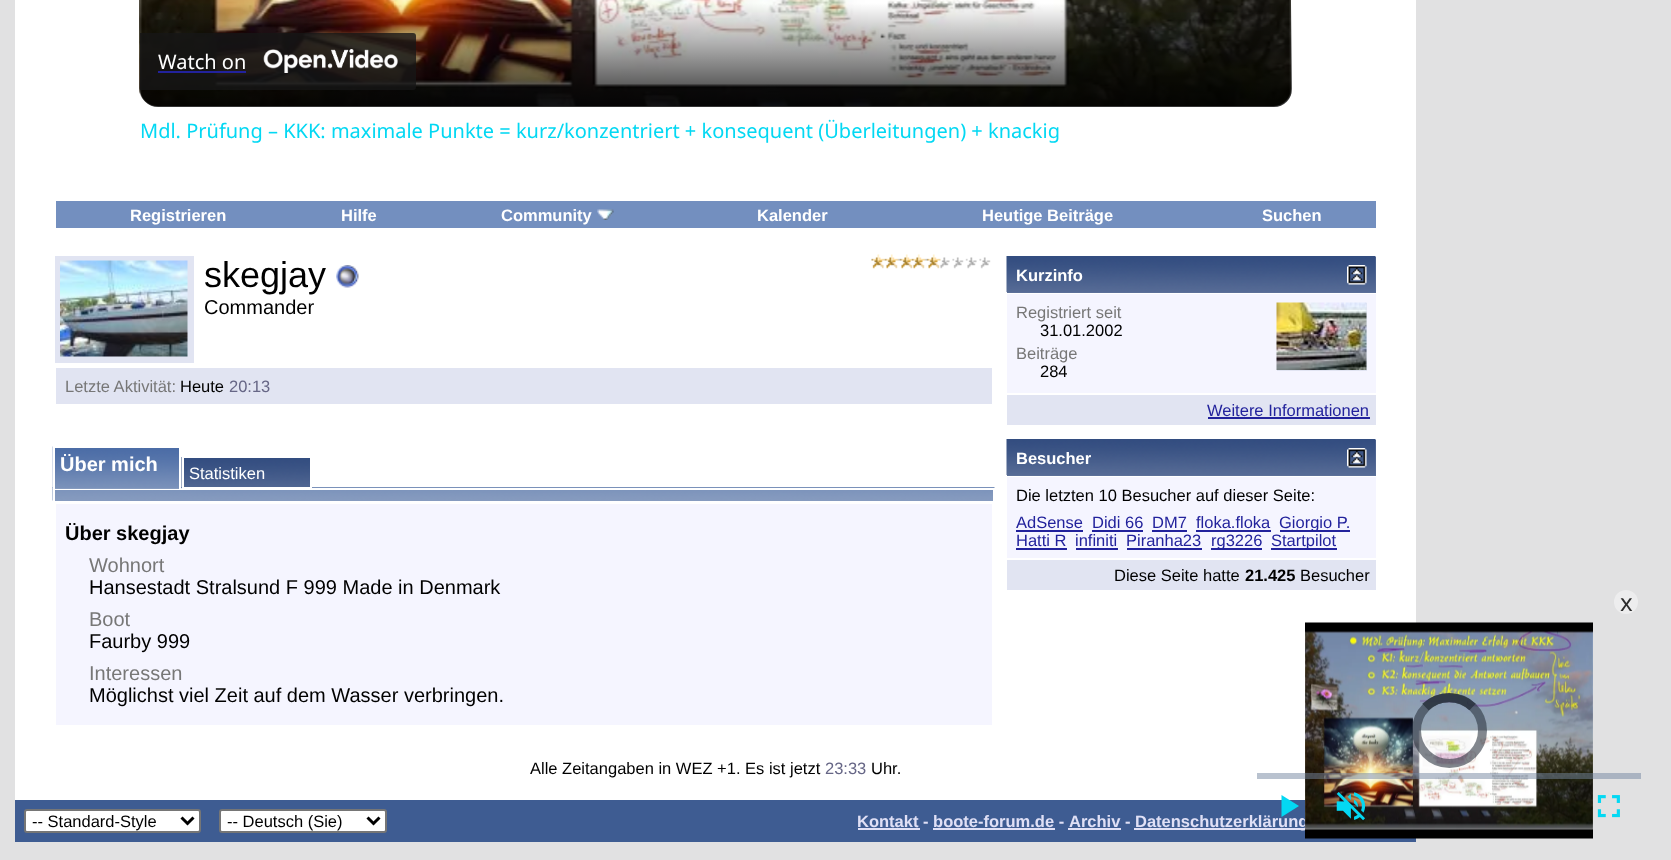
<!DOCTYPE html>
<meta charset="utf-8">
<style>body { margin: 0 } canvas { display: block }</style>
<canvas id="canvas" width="1671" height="860"></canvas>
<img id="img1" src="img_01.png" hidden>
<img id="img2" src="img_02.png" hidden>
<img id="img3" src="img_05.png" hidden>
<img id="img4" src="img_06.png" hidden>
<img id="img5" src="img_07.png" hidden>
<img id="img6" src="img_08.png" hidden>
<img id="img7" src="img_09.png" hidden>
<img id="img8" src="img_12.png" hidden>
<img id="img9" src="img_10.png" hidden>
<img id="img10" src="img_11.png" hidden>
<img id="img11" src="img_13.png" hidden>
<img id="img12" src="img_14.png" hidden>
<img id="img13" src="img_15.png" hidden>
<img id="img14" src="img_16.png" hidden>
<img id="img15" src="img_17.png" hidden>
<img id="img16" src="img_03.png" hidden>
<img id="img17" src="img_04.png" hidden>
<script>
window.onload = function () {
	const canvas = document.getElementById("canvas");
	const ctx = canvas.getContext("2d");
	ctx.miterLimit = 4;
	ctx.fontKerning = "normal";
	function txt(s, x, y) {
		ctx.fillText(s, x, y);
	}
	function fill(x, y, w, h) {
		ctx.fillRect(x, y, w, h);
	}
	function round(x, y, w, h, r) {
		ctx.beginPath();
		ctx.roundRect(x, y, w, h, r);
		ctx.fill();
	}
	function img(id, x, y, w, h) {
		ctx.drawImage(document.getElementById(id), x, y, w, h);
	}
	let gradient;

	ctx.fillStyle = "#E1E1E2";
	fill(0, 0, 1671, 860);
	ctx.fillStyle = "#FFFFFF";
	fill(15, 0, 1401, 800);
	img("img1", 139, 0, 1152, 106);
	gradient = ctx.createLinearGradient(716, -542, 716, 107);
	gradient.addColorStop(0, "rgba(0, 0, 0, 0.6)");
	gradient.addColorStop(0.16, "rgba(0, 0, 0, 0)");
	gradient.addColorStop(0.84, "rgba(0, 0, 0, 0)");
	gradient.addColorStop(1, "rgba(0, 0, 0, 0.8)");
	ctx.fillStyle = gradient;
	round(140, -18, 1152, 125, 18);
	ctx.fillStyle = "rgba(23, 23, 23, 0.8)";
	ctx.beginPath();
	ctx.roundRect(140, 33, 276, 57, [0, 3, 3, 0]);
	ctx.fill();
	ctx.fillStyle = "#22229C";
	fill(158, 71, 88, 2);
	img("img2", 263, 49, 135, 24);
	ctx.fillStyle = "#EDEDEE";
	ctx.beginPath();
	ctx.arc(1626, 602, 12, 0, Math.PI * 2);
	ctx.fill();
	img("img3", 1597, 795, 23, 23);
	ctx.fillStyle = "#738FBF";
	fill(56, 201, 1320, 27);
	img("img4", 597, 209, 17, 11);
	ctx.fillStyle = "#E1E4F2";
	fill(55, 256, 139, 107);
	img("img5", 60, 260, 128, 97);
	img("img6", 336, 265, 23, 23);
	img("img7", 871, 254, 120, 15);
	fill(56, 368, 936, 36);
	ctx.fillStyle = "#869BBF";
	fill(55, 500, 938, 1);
	img("img8", 52, 487, 943, 14);
	ctx.fillStyle = "#FFFFFF";
	fill(53, 488, 942, 2);
	ctx.fillStyle = "#869BBF";
	fill(55, 488, 124, 1);
	img("img9", 52, 446, 127, 42);
	ctx.fillStyle = "#FFFFFF";
	fill(53, 446, 127, 2);
	fill(179, 487, 2, 2);
	fill(53, 488, 2, 13);
	fill(53, 446, 2, 43);
	img("img10", 181, 457, 129, 32);
	ctx.strokeStyle = "#FFFFFF";
	ctx.lineWidth = 2;
	ctx.strokeRect(183, 457, 128, 31);
	fill(993, 488, 2, 13);
	ctx.fillStyle = "#F5F5FF";
	fill(56, 504, 936, 221);
	ctx.fillStyle = "#5C7099";
	fill(1007, 257, 369, 36);
	img("img11", 1006, 256, 370, 36);
	img("img12", 1347, 265, 20, 20);
	ctx.fillStyle = "#F5F5FF";
	fill(1007, 294, 369, 99);
	ctx.fillStyle = "#E1E4F2";
	fill(1277, 303, 90, 68);
	img("img13", 1276, 302, 91, 68);
	fill(1007, 395, 369, 30);
	ctx.fillStyle = "#22229C";
	fill(1208, 417, 162, 2);
	ctx.fillStyle = "#5C7099";
	fill(1007, 440, 369, 36);
	img("img14", 1006, 439, 370, 36);
	img("img15", 1347, 448, 20, 20);
	ctx.fillStyle = "#F5F5FF";
	fill(1007, 477, 369, 81);
	ctx.fillStyle = "#22229C";
	fill(1016, 530, 67, 2);
	fill(1092, 530, 51, 2);
	fill(1152, 530, 35, 2);
	fill(1196, 530, 75, 2);
	fill(1280, 530, 70, 2);
	fill(1016, 548, 51, 2);
	fill(1076, 548, 42, 2);
	fill(1127, 548, 75, 2);
	fill(1211, 548, 51, 2);
	fill(1271, 548, 66, 2);
	ctx.fillStyle = "#E1E4F2";
	fill(1007, 560, 369, 30);
	ctx.fillStyle = "#3E5C92";
	fill(15, 800, 1401, 42);
	ctx.fillStyle = "#FFFFFF";
	ctx.beginPath();
	ctx.roundRect(25, 810, 175, 22, 2);
	ctx.fill();
	ctx.strokeStyle = "#767676";
	ctx.stroke();
	ctx.beginPath();
	ctx.moveTo(181.5, 817.5);
	ctx.lineTo(187.5, 823.5);
	ctx.lineTo(193.5, 817.5);
	ctx.strokeStyle = "#000000";
	ctx.lineWidth = 3;
	ctx.stroke();
	ctx.beginPath();
	ctx.roundRect(220, 810, 166, 22, 2);
	ctx.fill();
	ctx.strokeStyle = "#767676";
	ctx.lineWidth = 2;
	ctx.stroke();
	ctx.beginPath();
	ctx.moveTo(367.5, 817.5);
	ctx.lineTo(373.5, 823.5);
	ctx.lineTo(379.5, 817.5);
	ctx.strokeStyle = "#000000";
	ctx.lineWidth = 3;
	ctx.stroke();
	ctx.fillStyle = "#E0E0F6";
	fill(858, 828, 62, 2);
	fill(933, 828, 122, 2);
	fill(1068, 828, 53, 2);
	fill(1134, 828, 174, 2);
	ctx.font = "20px Noto Sans";
	ctx.fillStyle = "#FFFFFF";
	txt("Watch on", 158, 69);
	ctx.font = "24px Noto Sans";
	ctx.fillStyle = "#2D2D2D";
	txt("x", 1620, 611);
	ctx.font = "20px Noto Sans";
	ctx.fillStyle = "#03D8F3";
	txt("Mdl. Prüfung – KKK: maximale Punkte = kurz/konzentriert + konsequent (Überleitungen) + knackig", 140, 138);
	ctx.font = "bold 16.5px Liberation Sans";
	ctx.fillStyle = "#FFFFFF";
	txt("Registrieren", 130, 221);
	txt("Hilfe", 341, 221);
	txt("Community", 501, 221);
	txt("Kalender", 757, 221);
	txt("Heutige Beiträge", 982, 221);
	txt("Suchen", 1262, 221);
	ctx.font = "36px Liberation Sans";
	ctx.fillStyle = "#000000";
	txt("skegjay", 204, 287);
	ctx.font = "20px Liberation Sans";
	txt("Commander", 204, 314);
	ctx.font = "16.5px Liberation Sans";
	ctx.fillStyle = "#777777";
	txt("Letzte Aktivität:", 65, 392);
	ctx.fillStyle = "#000000";
	txt("Heute", 180, 392);
	ctx.fillStyle = "#666686";
	txt("20:13", 229, 392);
	ctx.font = "bold 20px Liberation Sans";
	ctx.fillStyle = "#FFFFFF";
	txt("Über mich", 60, 471);
	ctx.font = "16.5px Liberation Sans";
	txt("Statistiken", 189, 479);
	ctx.font = "bold 20px Liberation Sans";
	ctx.fillStyle = "#000000";
	txt("Über skegjay", 65, 540);
	ctx.font = "20px Liberation Sans";
	ctx.fillStyle = "#777777";
	txt("Wohnort", 89, 572);
	ctx.fillStyle = "#000000";
	txt("Hansestadt Stralsund F 999 Made in Denmark", 89, 594);
	ctx.fillStyle = "#777777";
	txt("Boot", 89, 626);
	ctx.fillStyle = "#000000";
	txt("Faurby 999", 89, 648);
	ctx.fillStyle = "#777777";
	txt("Interessen", 89, 680);
	ctx.fillStyle = "#000000";
	txt("Möglichst viel Zeit auf dem Wasser verbringen.", 89, 702);
	ctx.font = "bold 16.5px Liberation Sans";
	ctx.fillStyle = "#FFFFFF";
	txt("Kurzinfo", 1016, 281);
	ctx.font = "16.5px Liberation Sans";
	ctx.fillStyle = "#777777";
	txt("Registriert seit", 1016, 318);
	ctx.fillStyle = "#000000";
	txt("31.01.2002", 1040, 336);
	ctx.fillStyle = "#777777";
	txt("Beiträge", 1016, 359);
	ctx.fillStyle = "#000000";
	txt("284", 1040, 377);
	ctx.fillStyle = "#22229C";
	txt("Weitere Informationen", 1207, 416);
	ctx.font = "bold 16.5px Liberation Sans";
	ctx.fillStyle = "#FFFFFF";
	txt("Besucher", 1016, 464);
	ctx.font = "16.5px Liberation Sans";
	ctx.fillStyle = "#000000";
	txt("Die letzten 10 Besucher auf dieser Seite:", 1016, 501);
	ctx.fillStyle = "#22229C";
	txt("AdSense", 1016, 528);
	txt("Didi 66", 1092, 528);
	txt("DM7", 1152, 528);
	txt("floka.floka", 1196, 528);
	txt("Giorgio P.", 1279, 528);
	txt("Hatti R", 1016, 546);
	txt("infiniti", 1075, 546);
	txt("Piranha23", 1126, 546);
	txt("rg3226", 1211, 546);
	txt("Startpilot", 1271, 546);
	ctx.fillStyle = "#000000";
	txt("Diese Seite hatte", 1114, 581);
	ctx.font = "bold 16.5px Liberation Sans";
	txt("21.425", 1245, 581);
	ctx.font = "16.5px Liberation Sans";
	txt("Besucher", 1300, 581);
	txt("Alle Zeitangaben in WEZ +1. Es ist jetzt", 530, 774);
	ctx.fillStyle = "#666686";
	txt("23:33", 825, 774);
	ctx.fillStyle = "#000000";
	txt("Uhr.", 871, 774);
	txt("-- Standard-Style", 32, 827);
	txt("-- Deutsch (Sie)", 227, 827);
	ctx.font = "bold 16.5px Liberation Sans";
	ctx.fillStyle = "#E0E0F6";
	txt("Kontakt - boote-forum.de -", 857, 827);
	txt("Archiv -", 1069, 827);
	txt("Datenschutzerklärung", 1135, 827);
	img("img16", 1305, 622, 288, 217);
	ctx.fillStyle = "rgba(115, 133, 159, 0.5)";
	fill(1257, 773, 384, 6);
	img("img17", 1336, 792, 30, 29);
	ctx.fillStyle = "#03D8F3";
	ctx.beginPath();
	ctx.moveTo(1281.5, 795);
	ctx.lineTo(1281.5, 817);
	ctx.lineTo(1299, 806);
	ctx.closePath();
	ctx.fill();
	ctx.beginPath();
	ctx.arc(1449.5, 730.5, 33, 0, Math.PI * 2);
	ctx.strokeStyle = "rgba(43, 51, 63, 0.59)";
	ctx.lineWidth = 9;
	ctx.stroke();
	ctx.beginPath();
	ctx.moveTo(1425.5, 707);
	ctx.bezierCurveTo(1438.5, 694.5, 1459.5, 694.5, 1472.5, 707);
	ctx.stroke();
	ctx.beginPath();
	ctx.moveTo(1425.5, 707);
	ctx.bezierCurveTo(1438.5, 694.5, 1459.5, 694.5, 1472.5, 707);
	ctx.stroke();
};
</script>
